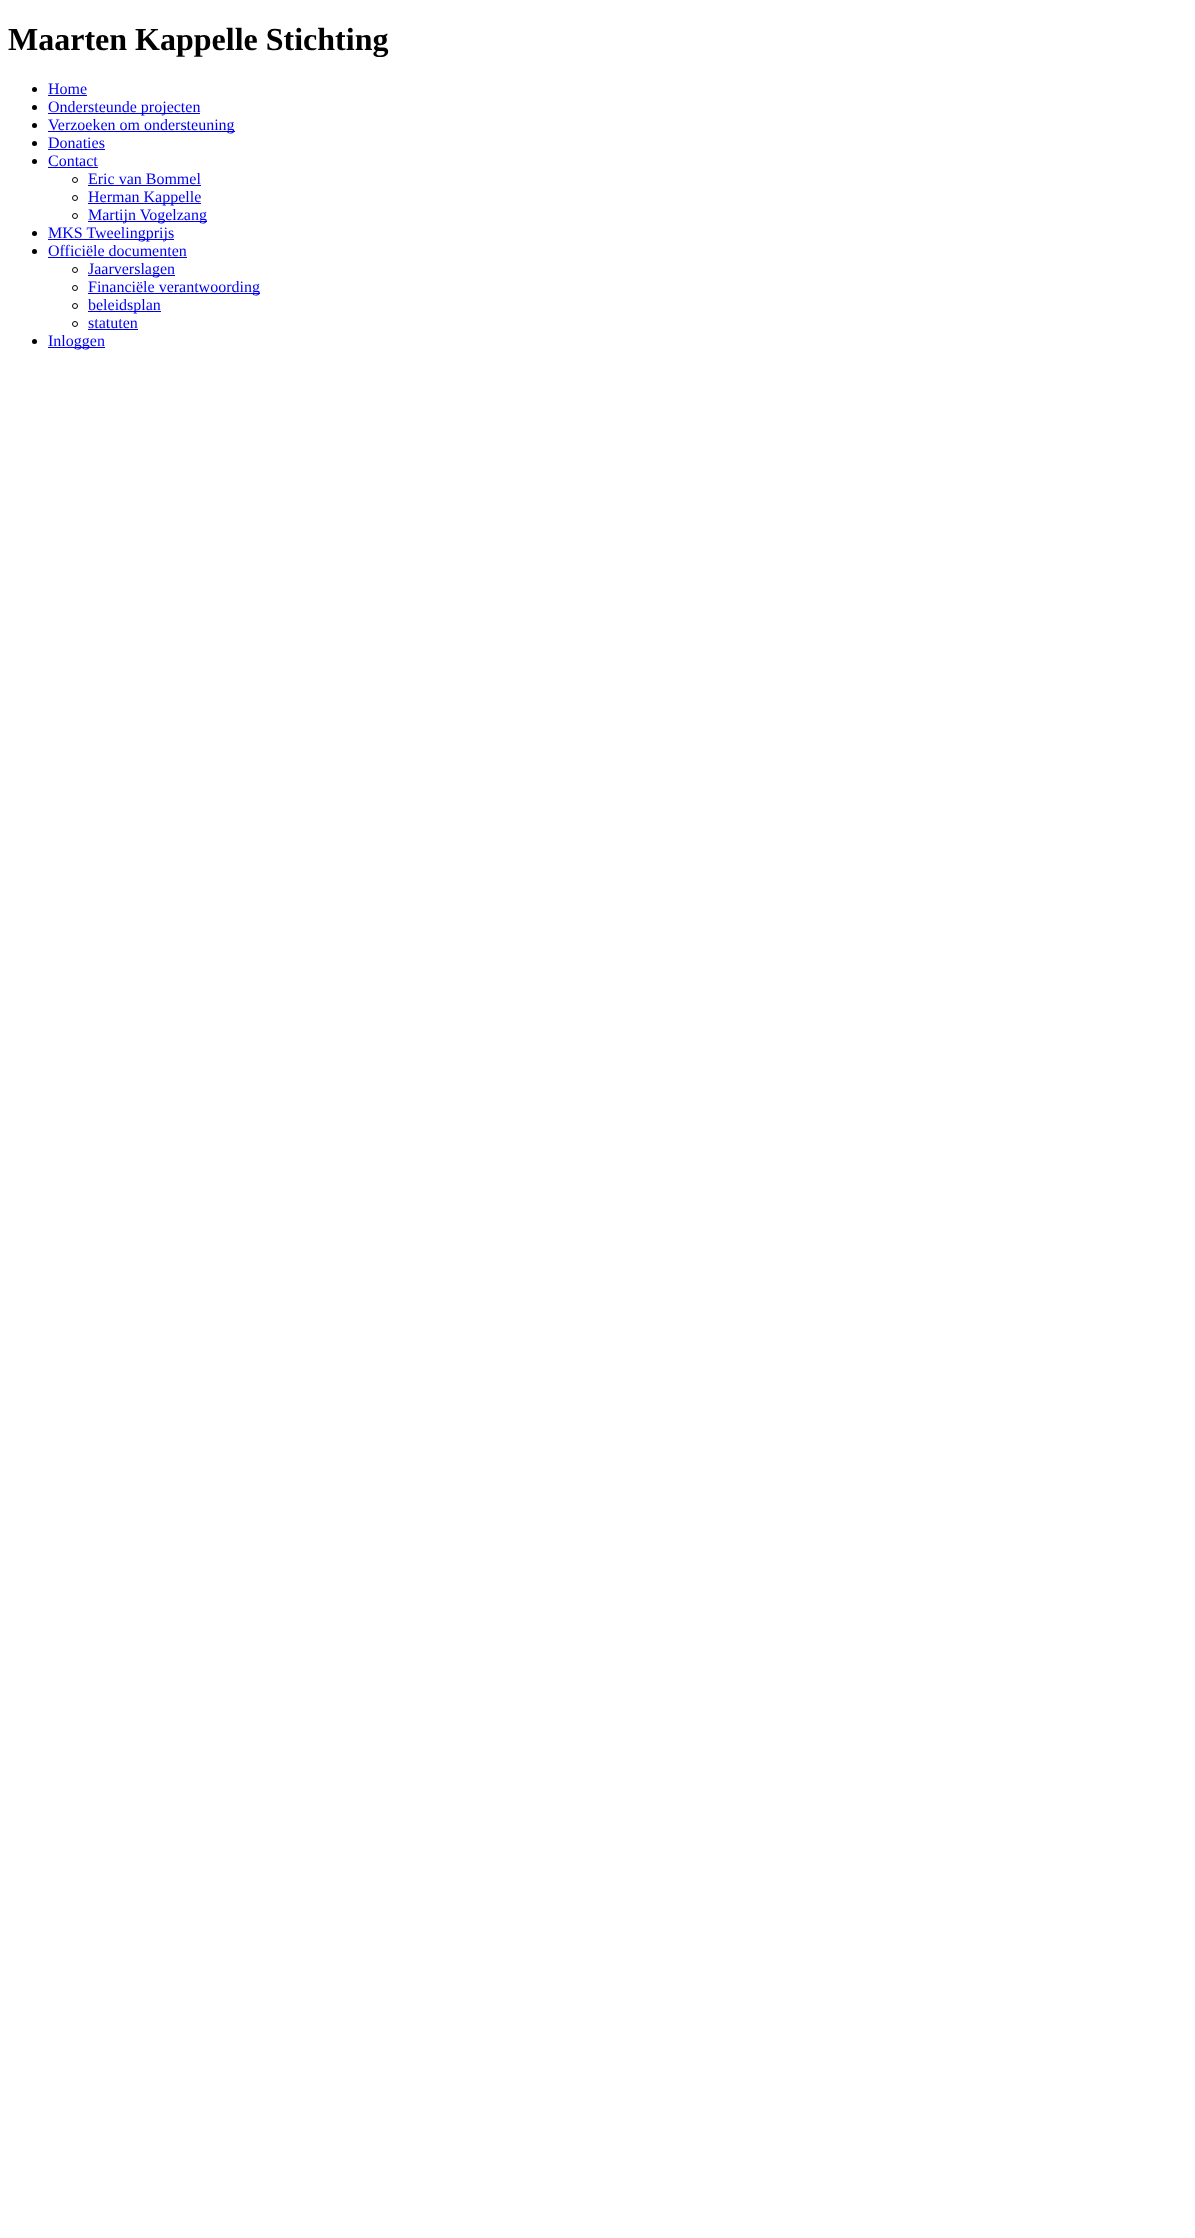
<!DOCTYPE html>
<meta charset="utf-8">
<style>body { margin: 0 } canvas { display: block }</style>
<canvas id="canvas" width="1195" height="2238"></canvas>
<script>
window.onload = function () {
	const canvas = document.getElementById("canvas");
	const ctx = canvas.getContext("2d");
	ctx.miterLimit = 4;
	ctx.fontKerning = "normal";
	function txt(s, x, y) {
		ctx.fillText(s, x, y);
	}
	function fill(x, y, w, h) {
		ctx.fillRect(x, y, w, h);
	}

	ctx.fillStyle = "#FFFFFF";
	fill(0, 0, 1195, 2238);
	ctx.fillStyle = "#000000";
	ctx.beginPath();
	ctx.arc(34.5, 89.5, 2.5, 0, Math.PI * 2);
	ctx.fill();
	ctx.fillStyle = "#0000EE";
	fill(48, 95, 39, 1);
	ctx.fillStyle = "#000000";
	ctx.beginPath();
	ctx.arc(34.5, 107.5, 2.5, 0, Math.PI * 2);
	ctx.fill();
	ctx.fillStyle = "#0000EE";
	fill(48, 113, 152, 1);
	ctx.fillStyle = "#000000";
	ctx.beginPath();
	ctx.arc(34.5, 125.5, 2.5, 0, Math.PI * 2);
	ctx.fill();
	ctx.fillStyle = "#0000EE";
	fill(48, 131, 187, 1);
	ctx.fillStyle = "#000000";
	ctx.beginPath();
	ctx.arc(34.5, 143.5, 2.5, 0, Math.PI * 2);
	ctx.fill();
	ctx.fillStyle = "#0000EE";
	fill(48, 149, 57, 1);
	ctx.fillStyle = "#000000";
	ctx.beginPath();
	ctx.arc(34.5, 161.5, 2.5, 0, Math.PI * 2);
	ctx.fill();
	ctx.fillStyle = "#0000EE";
	fill(48, 167, 50, 1);
	ctx.beginPath();
	ctx.arc(75, 180, 2.5, 0, Math.PI * 2);
	ctx.strokeStyle = "#000000";
	ctx.stroke();
	fill(88, 185, 113, 1);
	ctx.beginPath();
	ctx.arc(75, 198, 2.5, 0, Math.PI * 2);
	ctx.stroke();
	fill(88, 203, 113, 1);
	ctx.beginPath();
	ctx.arc(75, 216, 2.5, 0, Math.PI * 2);
	ctx.stroke();
	fill(88, 221, 119, 1);
	ctx.fillStyle = "#000000";
	ctx.beginPath();
	ctx.arc(34.5, 233.5, 2.5, 0, Math.PI * 2);
	ctx.fill();
	ctx.fillStyle = "#0000EE";
	fill(48, 239, 126, 1);
	ctx.fillStyle = "#000000";
	ctx.beginPath();
	ctx.arc(34.5, 251.5, 2.5, 0, Math.PI * 2);
	ctx.fill();
	ctx.fillStyle = "#0000EE";
	fill(48, 257, 139, 1);
	ctx.beginPath();
	ctx.arc(75, 270, 2.5, 0, Math.PI * 2);
	ctx.stroke();
	fill(88, 275, 87, 1);
	ctx.beginPath();
	ctx.arc(75, 288, 2.5, 0, Math.PI * 2);
	ctx.stroke();
	fill(88, 293, 172, 1);
	ctx.beginPath();
	ctx.arc(75, 306, 2.5, 0, Math.PI * 2);
	ctx.stroke();
	fill(88, 311, 73, 1);
	ctx.beginPath();
	ctx.arc(75, 324, 2.5, 0, Math.PI * 2);
	ctx.stroke();
	fill(88, 329, 50, 1);
	ctx.fillStyle = "#000000";
	ctx.beginPath();
	ctx.arc(34.5, 341.5, 2.5, 0, Math.PI * 2);
	ctx.fill();
	ctx.fillStyle = "#0000EE";
	fill(48, 347, 57, 1);
	ctx.font = "bold 32px Liberation Serif";
	ctx.fillStyle = "#000000";
	txt("Maarten Kappelle Stichting", 8, 50);
	ctx.font = "16px Liberation Serif";
	ctx.fillStyle = "#0000EE";
	txt("Home", 48, 94);
	txt("Ondersteunde projecten", 48, 112);
	txt("Verzoeken om ondersteuning", 48, 130);
	txt("Donaties", 48, 148);
	txt("Contact", 48, 166);
	txt("Eric van Bommel", 88, 184);
	txt("Herman Kappelle", 88, 202);
	txt("Martijn Vogelzang", 88, 220);
	txt("MKS Tweelingprijs", 48, 238);
	txt("Officiële documenten", 48, 256);
	txt("Jaarverslagen", 88, 274);
	txt("Financiële verantwoording", 88, 292);
	txt("beleidsplan", 88, 310);
	txt("statuten", 88, 328);
	txt("Inloggen", 48, 346);
};
</script>
